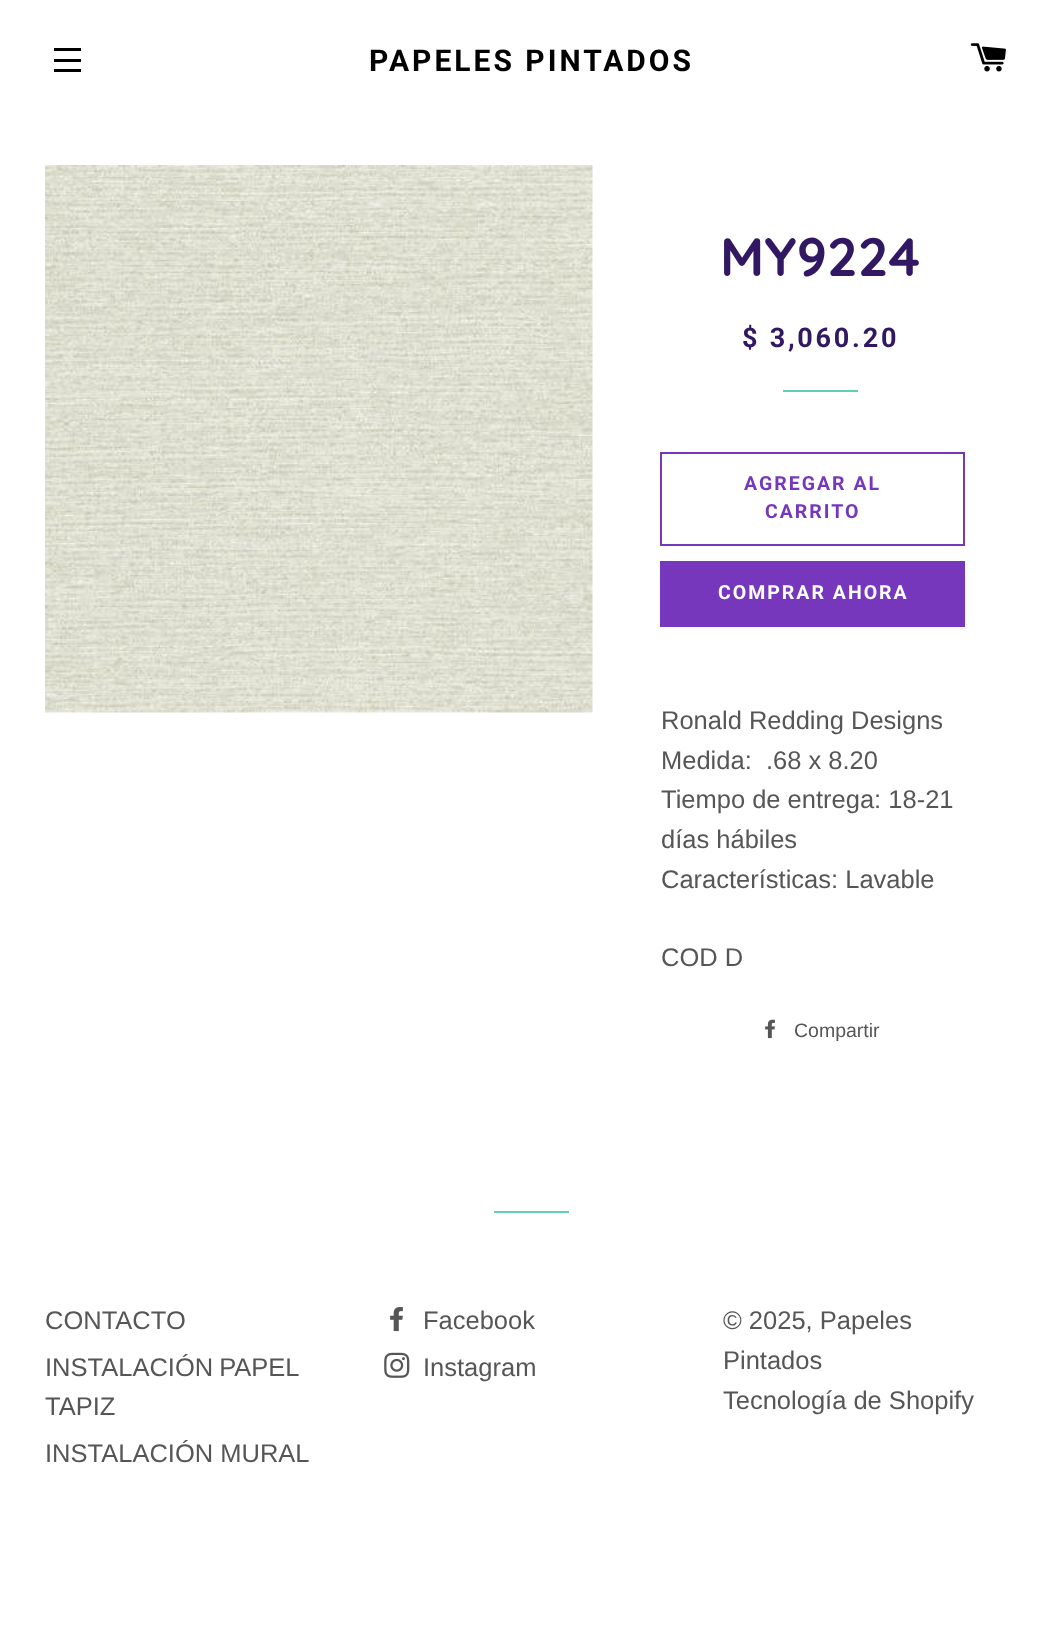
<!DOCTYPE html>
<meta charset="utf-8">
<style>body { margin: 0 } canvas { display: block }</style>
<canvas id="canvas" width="1061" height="1628"></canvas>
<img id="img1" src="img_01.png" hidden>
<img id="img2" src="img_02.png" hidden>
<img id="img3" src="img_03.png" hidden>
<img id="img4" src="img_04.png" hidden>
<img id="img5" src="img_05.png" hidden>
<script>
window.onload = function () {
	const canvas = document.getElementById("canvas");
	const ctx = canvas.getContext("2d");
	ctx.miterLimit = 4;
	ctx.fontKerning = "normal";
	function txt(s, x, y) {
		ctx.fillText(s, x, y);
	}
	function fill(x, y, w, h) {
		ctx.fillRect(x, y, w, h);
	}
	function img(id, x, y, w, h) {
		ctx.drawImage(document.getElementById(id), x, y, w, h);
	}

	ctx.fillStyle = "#FFFFFF";
	fill(0, 0, 1061, 1628);
	ctx.fillStyle = "#000000";
	fill(54, 48, 27, 3);
	fill(54, 59, 27, 3);
	fill(54, 69, 27, 3);
	img("img1", 970, 43, 36, 29);
	img("img2", 45, 165, 548, 548);
	ctx.fillStyle = "#5DD2B4";
	fill(783, 390, 75, 2);
	ctx.strokeStyle = "#7737BD";
	ctx.lineWidth = 2;
	ctx.strokeRect(661, 453, 303, 92);
	ctx.fillStyle = "#7737BD";
	fill(660, 561, 305, 66);
	img("img3", 765, 1019, 10, 20);
	ctx.fillStyle = "#5DD2B4";
	fill(494, 1211, 75, 2);
	img("img4", 390, 1307, 13, 25);
	img("img5", 384, 1352, 26, 26);
	ctx.letterSpacing = "3px";
	ctx.font = "bold 30px Roboto";
	ctx.fillStyle = "#000000";
	txt("PAPELES PINTADOS", 369, 71);
	ctx.letterSpacing = "0px";
	ctx.font = "bold 54px Quicksand";
	ctx.fillStyle = "#321863";
	txt("MY9224", 720, 276);
	ctx.letterSpacing = "2.75px";
	ctx.font = "bold 27px Roboto";
	txt("$ 3,060.20", 742, 347);
	ctx.letterSpacing = "2px";
	ctx.font = "bold 19.5px Roboto";
	ctx.fillStyle = "#7737BD";
	txt("AGREGAR AL", 744, 490);
	txt("CARRITO", 765, 518);
	ctx.fillStyle = "#FFFFFF";
	txt("COMPRAR AHORA", 718, 599);
	ctx.letterSpacing = "0px";
	ctx.font = "25.5px Liberation Sans";
	ctx.fillStyle = "#565656";
	txt("Ronald Redding Designs", 661, 729);
	txt("Medida:  .68 x 8.20", 661, 769);
	txt("Tiempo de entrega: 18-21", 661, 808);
	txt("días hábiles", 661, 848);
	txt("Características: Lavable", 661, 888);
	txt("COD D", 661, 966);
	ctx.font = "19.5px Liberation Sans";
	txt("Compartir", 794, 1037);
	ctx.font = "25.5px Liberation Sans";
	txt("CONTACTO", 45, 1329);
	ctx.wordSpacing = "-1px";
	txt("INSTALACIÓN PAPEL", 45, 1376);
	ctx.wordSpacing = "0px";
	txt("TAPIZ", 45, 1415);
	txt("INSTALACIÓN MURAL", 45, 1462);
	txt("Facebook", 423, 1329);
	txt("Instagram", 423, 1376);
	txt("© 2025, Papeles", 723, 1329);
	txt("Pintados", 723, 1369);
	txt("Tecnología de Shopify", 723, 1409);
};
</script>
